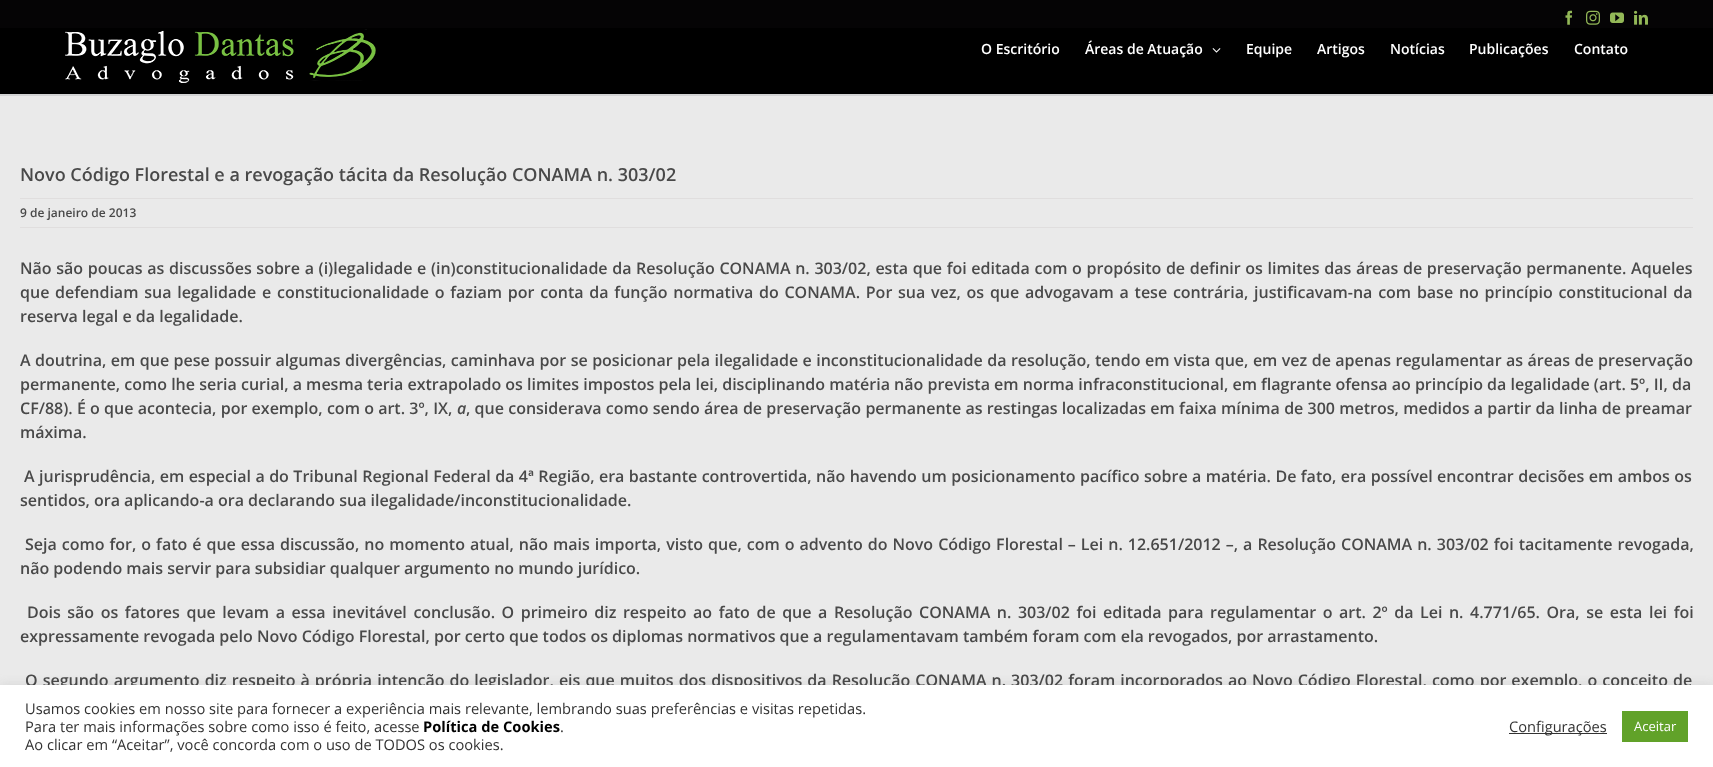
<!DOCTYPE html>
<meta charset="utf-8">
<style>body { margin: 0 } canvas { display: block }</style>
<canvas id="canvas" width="1713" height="767"></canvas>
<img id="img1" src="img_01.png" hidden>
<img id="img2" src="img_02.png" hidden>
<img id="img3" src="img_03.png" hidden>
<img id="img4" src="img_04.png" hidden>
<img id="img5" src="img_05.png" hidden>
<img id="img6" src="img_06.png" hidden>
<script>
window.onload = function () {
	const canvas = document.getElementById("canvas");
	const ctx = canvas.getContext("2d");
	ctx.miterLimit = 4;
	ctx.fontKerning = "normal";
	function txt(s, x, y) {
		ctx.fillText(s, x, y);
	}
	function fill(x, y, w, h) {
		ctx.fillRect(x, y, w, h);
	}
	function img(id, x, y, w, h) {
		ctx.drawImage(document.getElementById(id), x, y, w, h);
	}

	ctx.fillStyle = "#EAEAEA";
	fill(0, 0, 1713, 767);
	ctx.fillStyle = "#050405";
	fill(0, 0, 1713, 28);
	ctx.fillStyle = "#000000";
	fill(0, 28, 1713, 66);
	img("img1", 1565, 10, 8, 15);
	img("img2", 1586, 10, 14, 15);
	img("img3", 1610, 12, 14, 11);
	img("img4", 1634, 10, 14, 15);
	img("img5", 65, 29, 311, 54);
	img("img6", 1212, 48, 9, 5);
	ctx.fillStyle = "#D2D3D4";
	fill(0, 94, 1713, 2);
	ctx.fillStyle = "#E0DEDE";
	fill(20, 198, 1673, 1);
	fill(20, 227, 1673, 1);
	ctx.fillStyle = "rgba(172, 171, 171, 0.3)";
	ctx.filter = "blur(5px)";
	ctx.beginPath();
	ctx.rect(0, 684, 1713, 82);
	ctx.fill();
	ctx.filter = "none";
	ctx.font = "600 14px Open Sans";
	ctx.fillStyle = "#FFFFFF";
	txt("O Escritório", 981, 54);
	txt("Áreas de Atuação", 1085, 54);
	txt("Equipe", 1246, 54);
	txt("Artigos", 1317, 54);
	txt("Notícias", 1390, 54);
	txt("Publicações", 1469, 54);
	txt("Contato", 1574, 54);
	ctx.font = "600 18px Open Sans";
	ctx.fillStyle = "#494949";
	txt("Novo Código Florestal e a revogação tácita da Resolução CONAMA n. 303/02", 20, 181);
	ctx.font = "600 12px Open Sans";
	txt("9 de janeiro de 2013", 20, 217);
	ctx.wordSpacing = "0.5px";
	ctx.font = "600 16px Open Sans";
	txt("Não são poucas as discussões sobre a (i)legalidade e (in)constitucionalidade da Resolução CONAMA n. 303/02, esta que foi editada com o propósito de definir os limites das áreas de preservação permanente. Aqueles", 20, 274);
	ctx.wordSpacing = "1.6px";
	txt("que defendiam sua legalidade e constitucionalidade o faziam por conta da função normativa do CONAMA. Por sua vez, os que advogavam a tese contrária, justificavam-na com base no princípio constitucional da", 20, 298);
	ctx.wordSpacing = "0px";
	txt("reserva legal e da legalidade.", 20, 322);
	ctx.wordSpacing = "0.3px";
	txt("A doutrina, em que pese possuir algumas divergências, caminhava por se posicionar pela ilegalidade e inconstitucionalidade da resolução, tendo em vista que, em vez de apenas regulamentar as áreas de preservação", 20, 366);
	ctx.wordSpacing = "0px";
	txt("permanente, como lhe seria curial, a mesma teria extrapolado os limites impostos pela lei, disciplinando matéria não prevista em norma infraconstitucional, em flagrante ofensa ao princípio da legalidade (art. 5º, II, da", 20, 390);
	ctx.wordSpacing = "0.1px";
	txt("CF/88). É o que acontecia, por exemplo, com o art. 3º, IX,", 20, 414);
	ctx.wordSpacing = "0px";
	ctx.font = "italic 600 16px Open Sans";
	txt("a", 457, 414);
	ctx.wordSpacing = "0.1px";
	ctx.font = "600 16px Open Sans";
	txt(", que considerava como sendo área de preservação permanente as restingas localizadas em faixa mínima de 300 metros, medidos a partir da linha de preamar", 466, 414);
	ctx.wordSpacing = "0px";
	txt("máxima.", 20, 438);
	ctx.wordSpacing = "0.3px";
	txt("A jurisprudência, em especial a do Tribunal Regional Federal da 4ª Região, era bastante controvertida, não havendo um posicionamento pacífico sobre a matéria. De fato, era possível encontrar decisões em ambos os", 24, 482);
	ctx.wordSpacing = "0px";
	txt("sentidos, ora aplicando-a ora declarando sua ilegalidade/inconstitucionalidade.", 20, 506);
	ctx.wordSpacing = "0.85px";
	txt("Seja como for, o fato é que essa discussão, no momento atual, não mais importa, visto que, com o advento do Novo Código Florestal – Lei n. 12.651/2012 –, a Resolução CONAMA n. 303/02 foi tacitamente revogada,", 25, 550);
	ctx.wordSpacing = "0px";
	txt("não podendo mais servir para subsidiar qualquer argumento no mundo jurídico.", 20, 574);
	ctx.wordSpacing = "2.4px";
	txt("Dois são os fatores que levam a essa inevitável conclusão. O primeiro diz respeito ao fato de que a Resolução CONAMA n. 303/02 foi editada para regulamentar o art. 2º da Lei n. 4.771/65. Ora, se esta lei foi", 27, 618);
	ctx.wordSpacing = "0px";
	txt("expressamente revogada pelo Novo Código Florestal, por certo que todos os diplomas normativos que a regulamentavam também foram com ela revogados, por arrastamento.", 20, 642);
	ctx.wordSpacing = "0.9px";
	txt("O segundo argumento diz respeito à própria intenção do legislador, eis que muitos dos dispositivos da Resolução CONAMA n. 303/02 foram incorporados ao Novo Código Florestal, como por exemplo, o conceito de", 25, 686);
	ctx.fillStyle = "#FFFFFF";
	fill(0, 685, 1713, 82);
	ctx.wordSpacing = "0px";
	ctx.font = "14.67px Open Sans";
	ctx.fillStyle = "#333333";
	txt("Usamos cookies em nosso site para fornecer a experiência mais relevante, lembrando suas preferências e visitas repetidas.", 25, 714);
	txt("Para ter mais informações sobre como isso é feito, acesse", 25, 732);
	ctx.font = "bold 14.67px Open Sans";
	ctx.fillStyle = "#000000";
	txt("Política de Cookies", 423, 732);
	ctx.font = "14.67px Open Sans";
	ctx.fillStyle = "#333333";
	txt(".", 560, 732);
	txt("Ao clicar em “Aceitar”, você concorda com o uso de TODOS os cookies.", 25, 750);
	fill(1509, 733, 98, 1);
	txt("Configurações", 1509, 732);
	ctx.fillStyle = "#61A229";
	fill(1622, 711, 66, 31);
	ctx.font = "13px Open Sans";
	ctx.fillStyle = "#FFFFFF";
	txt("Aceitar", 1634, 731);
};
</script>
